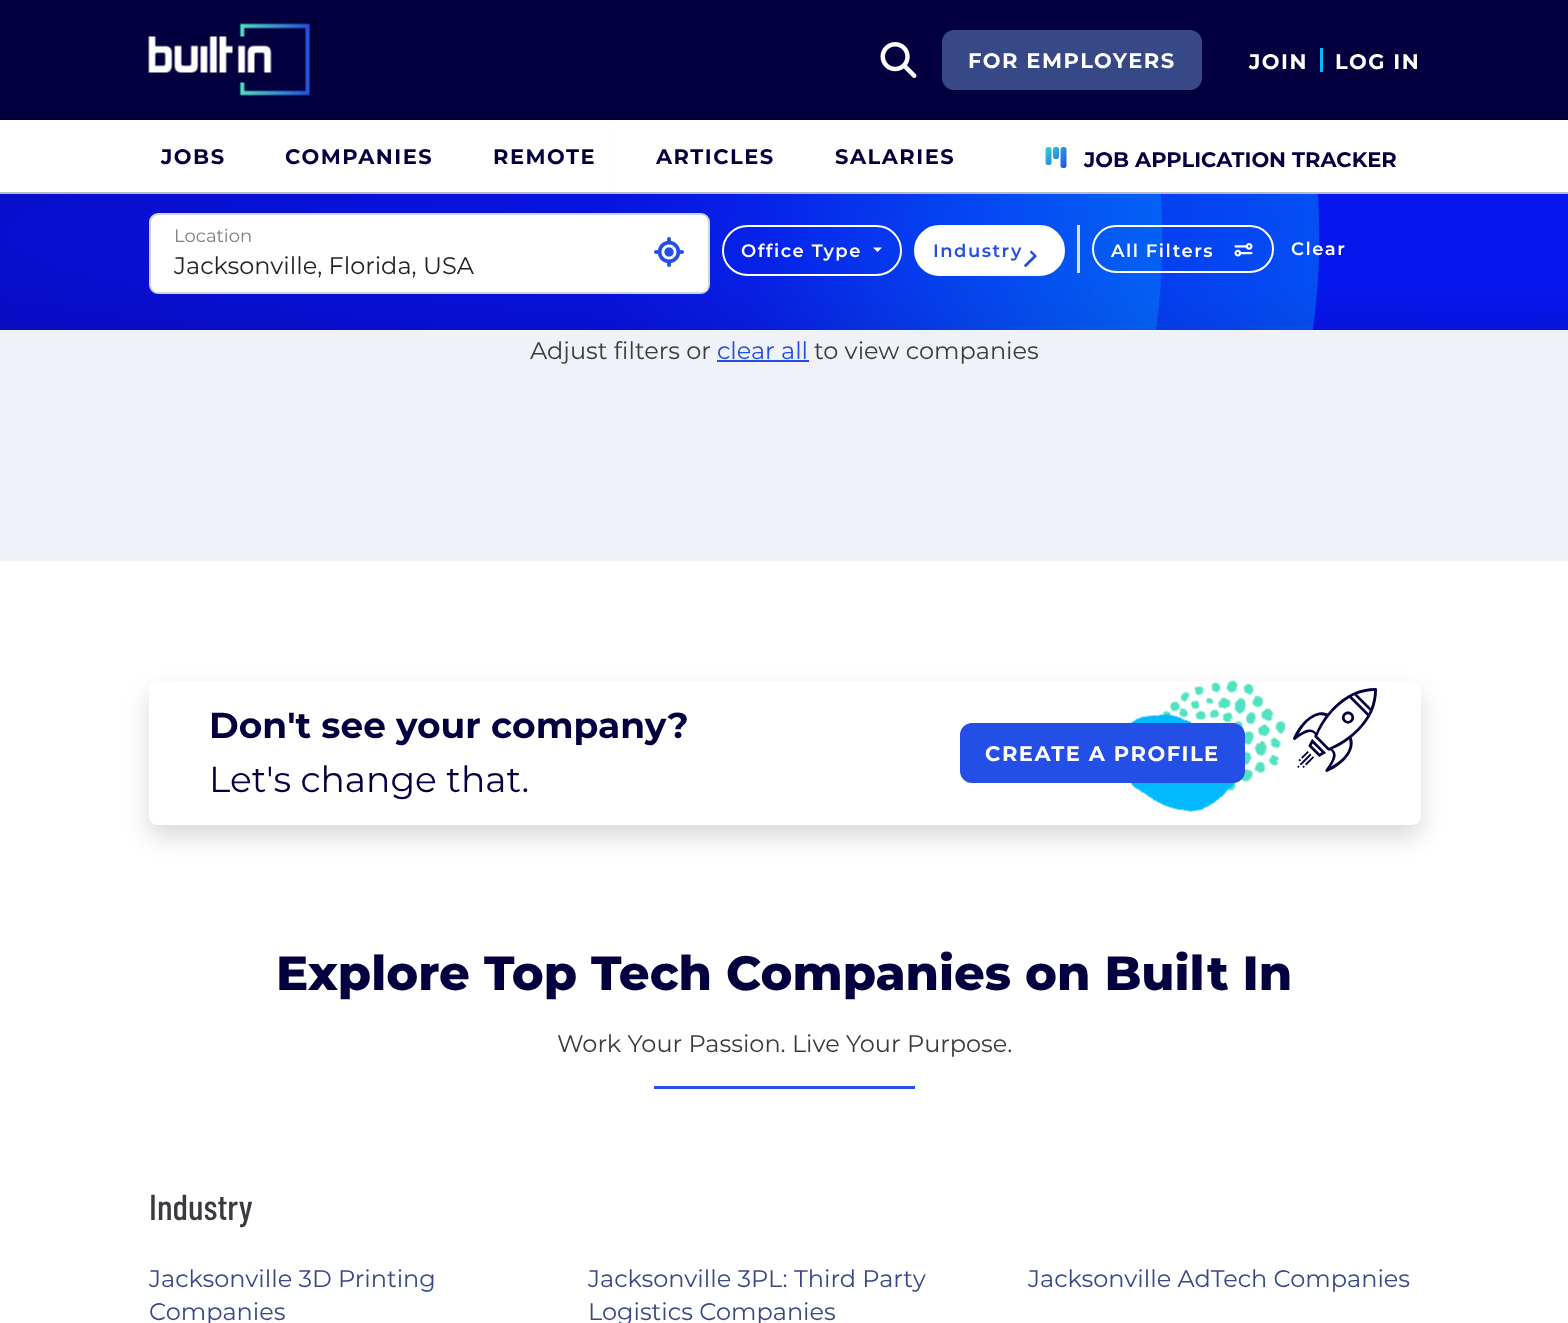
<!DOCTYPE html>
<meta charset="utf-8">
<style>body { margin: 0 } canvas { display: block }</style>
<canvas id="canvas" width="1568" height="1323"></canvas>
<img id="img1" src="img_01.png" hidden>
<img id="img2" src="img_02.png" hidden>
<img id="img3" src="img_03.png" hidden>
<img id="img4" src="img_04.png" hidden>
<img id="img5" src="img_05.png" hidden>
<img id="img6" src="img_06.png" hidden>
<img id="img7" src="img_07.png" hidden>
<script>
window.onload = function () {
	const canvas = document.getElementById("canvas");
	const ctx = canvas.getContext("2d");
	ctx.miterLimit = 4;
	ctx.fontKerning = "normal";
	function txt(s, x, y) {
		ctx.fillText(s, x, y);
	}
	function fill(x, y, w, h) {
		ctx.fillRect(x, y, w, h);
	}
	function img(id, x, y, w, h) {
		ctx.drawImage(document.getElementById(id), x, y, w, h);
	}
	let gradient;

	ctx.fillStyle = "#FFFFFF";
	fill(0, 0, 1568, 1323);
	gradient = ctx.createRadialGradient(1555, 2743.75, 0, 1555, 2743.75, 2861);
	gradient.addColorStop(0.23, "#0617ED");
	gradient.addColorStop(1, "#0C029E");
	ctx.fillStyle = gradient;
	ctx.beginPath();
	ctx.rect(0, 194, 1568, 136);
	ctx.save();
	ctx.clip();
	ctx.scale(1, 244 / 2861);
	ctx.fillRect(0, 0, 1568, 15513);
	ctx.restore();
	ctx.save();
	ctx.beginPath();
	ctx.rect(0, 84, 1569, 246);
	ctx.clip();
	gradient = ctx.createLinearGradient(-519, 290, 1414, 223);
	gradient.addColorStop(0.58, "rgba(0, 185, 254, 0)");
	gradient.addColorStop(1, "rgba(0, 185, 254, 0.4)");
	ctx.fillStyle = gradient;
	ctx.beginPath();
	ctx.moveTo(-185, 619);
	ctx.bezierCurveTo(-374, 290, -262, -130, 67, -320);
	ctx.lineTo(132, -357);
	ctx.bezierCurveTo(460, -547, 880, -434, 1070, -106);
	ctx.bezierCurveTo(1260, 223, 1147, 643, 819, 833);
	ctx.lineTo(754, 870);
	ctx.bezierCurveTo(425, 1060, 5, 947, -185, 619);
	ctx.closePath();
	ctx.fill();
	gradient = ctx.createLinearGradient(-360, 298, 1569, 215);
	gradient.addColorStop(0.58, "rgba(0, 185, 254, 0)");
	gradient.addColorStop(1, "rgba(0, 185, 254, 0.5)");
	ctx.fillStyle = gradient;
	ctx.beginPath();
	ctx.moveTo(-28, 619);
	ctx.bezierCurveTo(-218, 290, -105, -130, 224, -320);
	ctx.lineTo(289, -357);
	ctx.bezierCurveTo(617, -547, 1037, -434, 1227, -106);
	ctx.bezierCurveTo(1417, 223, 1304, 643, 976, 833);
	ctx.lineTo(911, 870);
	ctx.bezierCurveTo(582, 1060, 162, 947, -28, 619);
	ctx.closePath();
	ctx.fill();
	ctx.restore();
	ctx.fillStyle = "#04003F";
	fill(0, 0, 1568, 120);
	img("img1", 148, 23, 163, 73);
	img("img2", 880, 42, 37, 36);
	ctx.fillStyle = "#374886";
	ctx.beginPath();
	ctx.roundRect(943, 31, 258, 58, 11);
	ctx.fill();
	ctx.strokeStyle = "#374886";
	ctx.lineWidth = 2;
	ctx.stroke();
	ctx.fillStyle = "#00B9FE";
	fill(1320, 48, 3, 24);
	ctx.fillStyle = "#FFFFFF";
	fill(618, 120, 700, 72);
	ctx.fillStyle = "#B7BAC9";
	fill(0, 192, 1568, 2);
	img("img3", 1045, 147, 22, 21);
	ctx.fillStyle = "#FFFFFF";
	ctx.beginPath();
	ctx.roundRect(150, 214, 559, 79, 8);
	ctx.fill();
	ctx.strokeStyle = "#CED4DA";
	ctx.stroke();
	img("img4", 654, 237, 30, 30);
	ctx.beginPath();
	ctx.roundRect(723, 226, 178, 49, 24.5);
	ctx.strokeStyle = "#FFFFFF";
	ctx.stroke();
	ctx.beginPath();
	ctx.moveTo(873, 247.5);
	ctx.lineTo(882, 247.5);
	ctx.lineTo(877.5, 252);
	ctx.closePath();
	ctx.fill();
	ctx.beginPath();
	ctx.roundRect(915, 226, 149, 49, 24.5);
	ctx.fill();
	ctx.stroke();
	ctx.fillStyle = "#DEE2E6";
	fill(1077, 225, 3, 48);
	ctx.beginPath();
	ctx.roundRect(1093, 226, 180, 46, 23);
	ctx.stroke();
	img("img5", 1234, 243, 19, 14);
	ctx.fillStyle = "#F0F2FA";
	fill(0, 330, 1568, 231);
	ctx.fillStyle = "#244FE7";
	fill(717, 360, 92, 2);
	img("img6", 1130, 680, 156, 132);
	img("img7", 1293, 688, 84, 84);
	ctx.save();
	ctx.beginPath();
	ctx.moveTo(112, 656);
	ctx.lineTo(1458, 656);
	ctx.lineTo(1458, 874);
	ctx.lineTo(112, 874);
	ctx.closePath();
	ctx.moveTo(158, 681);
	ctx.lineTo(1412, 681);
	ctx.bezierCurveTo(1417, 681, 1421, 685, 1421, 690);
	ctx.lineTo(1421, 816);
	ctx.bezierCurveTo(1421, 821, 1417, 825, 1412, 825);
	ctx.lineTo(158, 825);
	ctx.bezierCurveTo(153, 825, 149, 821, 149, 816);
	ctx.lineTo(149, 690);
	ctx.bezierCurveTo(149, 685, 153, 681, 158, 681);
	ctx.closePath();
	ctx.clip("evenodd");
	ctx.fillStyle = "rgba(0, 0, 0, 0.15)";
	ctx.filter = "blur(12px)";
	ctx.beginPath();
	ctx.roundRect(149, 693, 1272, 144, 9);
	ctx.fill();
	ctx.filter = "none";
	ctx.restore();
	ctx.beginPath();
	ctx.roundRect(961, 724, 283, 58, 11);
	ctx.fill();
	ctx.strokeStyle = "#244FE7";
	ctx.stroke();
	fill(654, 1086, 261, 3);
	ctx.letterSpacing = "1.5px";
	ctx.font = "100 21px 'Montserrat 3'";
	ctx.fillStyle = "#FFFFFF";
	txt("FOR EMPLOYERS", 968, 68);
	txt("JOIN", 1249, 69);
	txt("LOG IN", 1335, 69);
	ctx.fillStyle = "#04003F";
	txt("JOBS", 161, 164);
	txt("COMPANIES", 285, 164);
	txt("REMOTE", 493, 164);
	txt("ARTICLES", 656, 164);
	txt("SALARIES", 835, 164);
	ctx.letterSpacing = "0px";
	txt("JOB APPLICATION TRACKER", 1084, 167);
	ctx.font = "100 18px Montserrat";
	ctx.fillStyle = "#7F8084";
	txt("Location", 174, 242);
	ctx.font = "100 24px Montserrat";
	ctx.fillStyle = "#212529";
	txt("Jacksonville, Florida, USA", 174, 274);
	ctx.letterSpacing = "1.5px";
	ctx.font = "100 18px 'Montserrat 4'";
	ctx.fillStyle = "#FFFFFF";
	txt("Office Type", 741, 257);
	ctx.fillStyle = "#244FE7";
	txt("Industry", 933, 257);
	ctx.letterSpacing = "2px";
	ctx.font = "bold 22px Barlow Condensed";
	ctx.save();
	ctx.translate(1038, 257);
	ctx.rotate(-135 * Math.PI / 180);
	ctx.fillText("L", 0, 0);
	ctx.restore();
	ctx.letterSpacing = "1.5px";
	ctx.font = "100 18px 'Montserrat 4'";
	ctx.fillStyle = "#FFFFFF";
	txt("All Filters", 1111, 257);
	txt("Clear", 1291, 255);
	ctx.letterSpacing = "0px";
	ctx.font = "100 24px Montserrat";
	ctx.fillStyle = "#3A3B41";
	txt("Adjust filters or", 530, 359);
	ctx.fillStyle = "#244FE7";
	txt("clear all", 717, 359);
	ctx.fillStyle = "#3A3B41";
	txt("to view companies", 814, 359);
	ctx.font = "100 36px 'Montserrat 3'";
	ctx.fillStyle = "#04003F";
	txt("Don't see your company?", 209, 738);
	ctx.font = "100 36px Montserrat";
	txt("Let's change that.", 209, 792);
	ctx.letterSpacing = "1.5px";
	ctx.font = "100 21px 'Montserrat 3'";
	ctx.fillStyle = "#FFFFFF";
	txt("CREATE A PROFILE", 985, 761);
	ctx.letterSpacing = "0px";
	ctx.font = "100 48px 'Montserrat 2'";
	ctx.fillStyle = "#04003F";
	txt("Explore Top Tech Companies on Built In", 276, 990);
	ctx.font = "100 24px Montserrat";
	ctx.fillStyle = "#3A3B41";
	txt("Work Your Passion. Live Your Purpose.", 557, 1052);
	ctx.font = "500 36px Barlow Condensed";
	txt("Industry", 149, 1220);
	ctx.font = "100 24px Montserrat";
	ctx.fillStyle = "#374886";
	txt("Jacksonville 3D Printing", 149, 1287);
	txt("Companies", 149, 1320);
	txt("Jacksonville 3PL: Third Party", 588, 1287);
	txt("Logistics Companies", 588, 1320);
	txt("Jacksonville AdTech Companies", 1028, 1287);
};
</script>
